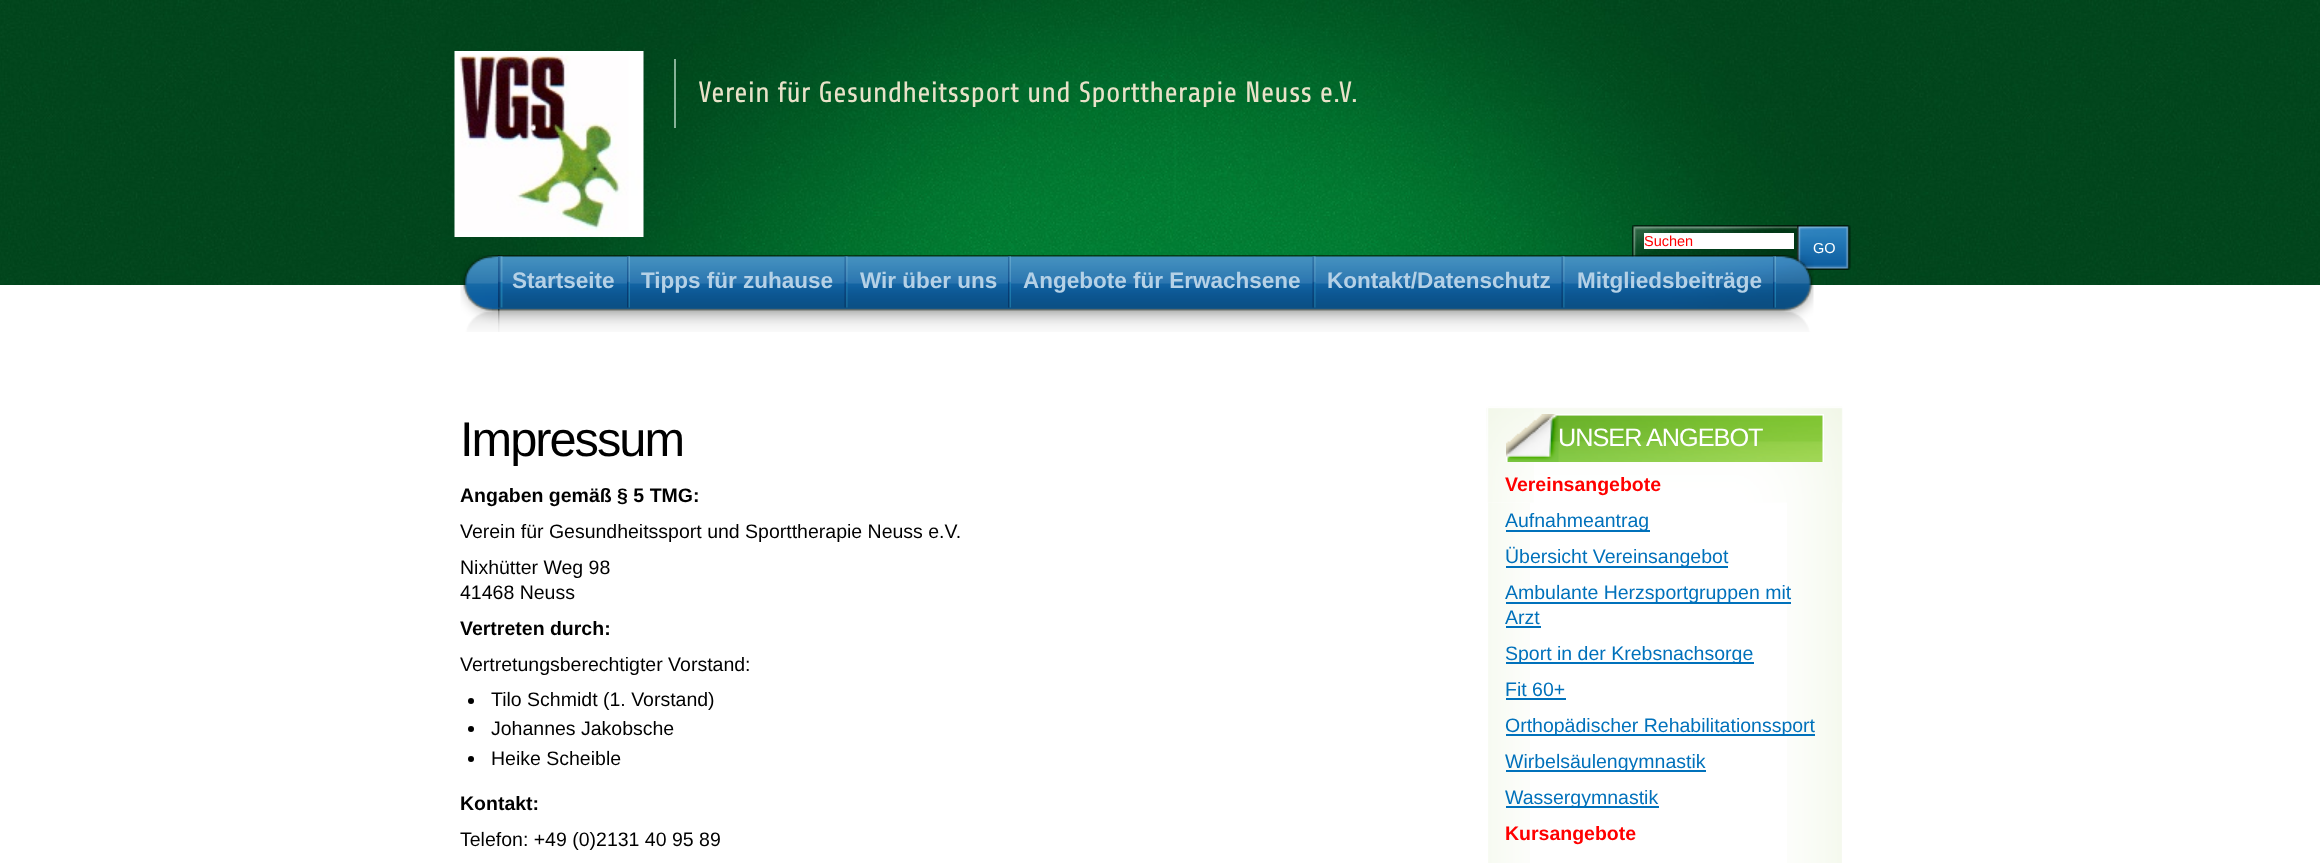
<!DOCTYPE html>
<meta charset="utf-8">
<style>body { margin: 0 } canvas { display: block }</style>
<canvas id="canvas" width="2320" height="863"></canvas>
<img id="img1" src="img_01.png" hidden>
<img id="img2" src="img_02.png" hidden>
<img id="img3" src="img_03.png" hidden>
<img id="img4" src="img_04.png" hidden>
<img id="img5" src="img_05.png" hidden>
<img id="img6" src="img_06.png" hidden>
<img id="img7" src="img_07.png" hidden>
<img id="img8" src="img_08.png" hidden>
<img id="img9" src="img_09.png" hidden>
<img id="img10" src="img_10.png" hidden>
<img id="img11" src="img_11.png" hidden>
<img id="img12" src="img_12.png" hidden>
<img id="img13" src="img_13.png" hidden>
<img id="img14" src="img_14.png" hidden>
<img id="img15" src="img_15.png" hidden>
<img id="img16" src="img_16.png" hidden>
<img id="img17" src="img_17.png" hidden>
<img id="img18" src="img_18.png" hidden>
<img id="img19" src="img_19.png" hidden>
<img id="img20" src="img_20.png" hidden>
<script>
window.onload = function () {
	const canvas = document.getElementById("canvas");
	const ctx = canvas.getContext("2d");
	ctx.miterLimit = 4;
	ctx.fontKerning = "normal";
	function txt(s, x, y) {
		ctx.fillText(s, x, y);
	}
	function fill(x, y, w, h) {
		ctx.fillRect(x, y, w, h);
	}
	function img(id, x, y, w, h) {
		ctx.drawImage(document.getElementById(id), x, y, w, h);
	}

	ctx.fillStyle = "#FFFFFF";
	fill(0, 0, 2320, 863);
	img("img1", 0, 0, 2320, 285);
	img("img2", 445, 0, 1436, 285);
	img("img3", 454, 51, 190, 186);
	ctx.fillStyle = "#87B298";
	fill(674, 59, 2, 69);
	img("img4", 1632, 225, 165, 37);
	img("img5", 1797, 225, 54, 45);
	ctx.fillStyle = "#FFFFFF";
	fill(1644, 233, 150, 16);
	img("img6", 460, 255, 40, 77);
	img("img7", 498, 255, 1316, 77);
	img("img8", 1773, 256, 3, 52);
	img("img9", 498, 256, 5, 52);
	img("img10", 627, 256, 3, 52);
	img("img11", 844, 256, 4, 52);
	img("img12", 1008, 256, 3, 52);
	img("img13", 1312, 256, 4, 52);
	img("img14", 1561, 256, 4, 52);
	ctx.fillStyle = "#000000";
	ctx.beginPath();
	ctx.arc(471, 701, 3, 0, Math.PI * 2);
	ctx.fill();
	ctx.beginPath();
	ctx.arc(471, 729, 3, 0, Math.PI * 2);
	ctx.fill();
	ctx.beginPath();
	ctx.arc(471, 759, 3, 0, Math.PI * 2);
	ctx.fill();
	img("img15", 1488, 406, 42, 457);
	img("img16", 1787, 406, 55, 457);
	img("img17", 1486, 406, 357, 97);
	img("img18", 1487, 408, 47, 95);
	img("img19", 1506, 414, 53, 48);
	img("img20", 1558, 414, 266, 48);
	ctx.fillStyle = "#0071BB";
	fill(1506, 530, 144, 2);
	fill(1506, 566, 222, 2);
	fill(1506, 602, 285, 2);
	fill(1506, 626, 35, 2);
	fill(1506, 662, 248, 2);
	fill(1506, 698, 60, 2);
	fill(1506, 734, 309, 2);
	fill(1506, 770, 200, 2);
	fill(1506, 806, 153, 2);
	ctx.font = "29.25px Share";
	ctx.fillStyle = "#E9E2C9";
	txt("Verein für Gesundheitssport und Sporttherapie Neuss e.V.", 698, 102);
	ctx.font = "14.5px Liberation Sans";
	ctx.fillStyle = "#FF0000";
	txt("Suchen", 1644, 246);
	ctx.fillStyle = "#FFFFFF";
	txt("GO", 1813, 253);
	ctx.font = "bold 22.5px Liberation Sans";
	ctx.fillStyle = "#B5D1E6";
	txt("Startseite", 512, 288);
	txt("Tipps für zuhause", 641, 288);
	txt("Wir über uns", 860, 288);
	txt("Angebote für Erwachsene", 1023, 288);
	txt("Kontakt/Datenschutz", 1327, 288);
	txt("Mitgliedsbeiträge", 1577, 288);
	ctx.letterSpacing = "-2px";
	ctx.font = "48.75px Liberation Sans";
	ctx.fillStyle = "#000000";
	txt("Impressum", 460, 456);
	ctx.letterSpacing = "0px";
	ctx.font = "bold 19.5px Liberation Sans";
	txt("Angaben gemäß § 5 TMG:", 460, 502);
	ctx.font = "19.5px Liberation Sans";
	txt("Verein für Gesundheitssport und Sporttherapie Neuss e.V.", 460, 538);
	txt("Nixhütter Weg 98", 460, 574);
	txt("41468 Neuss", 460, 599);
	ctx.font = "bold 19.5px Liberation Sans";
	txt("Vertreten durch:", 460, 635);
	ctx.font = "19.5px Liberation Sans";
	txt("Vertretungsberechtigter Vorstand:", 460, 671);
	txt("Tilo Schmidt (1. Vorstand)", 491, 706);
	txt("Johannes Jakobsche", 491, 735);
	txt("Heike Scheible", 491, 765);
	ctx.font = "bold 19.5px Liberation Sans";
	txt("Kontakt:", 460, 810);
	ctx.font = "19.5px Liberation Sans";
	txt("Telefon: +49 (0)2131 40 95 89", 460, 846);
	ctx.letterSpacing = "-1px";
	ctx.font = "25.25px Liberation Sans";
	ctx.fillStyle = "#FFFFFF";
	txt("UNSER ANGEBOT", 1558, 446);
	ctx.letterSpacing = "0px";
	ctx.font = "bold 19.5px Liberation Sans";
	ctx.fillStyle = "#FF0000";
	txt("Vereinsangebote", 1505, 491);
	ctx.font = "19.5px Liberation Sans";
	ctx.fillStyle = "#0071BB";
	txt("Aufnahmeantrag", 1505, 527);
	txt("Übersicht Vereinsangebot", 1505, 563);
	txt("Ambulante Herzsportgruppen mit", 1505, 599);
	txt("Arzt", 1505, 624);
	txt("Sport in der Krebsnachsorge", 1505, 660);
	txt("Fit 60+", 1505, 696);
	txt("Orthopädischer Rehabilitationssport", 1505, 732);
	txt("Wirbelsäulengymnastik", 1505, 768);
	txt("Wassergymnastik", 1505, 804);
	ctx.font = "bold 19.5px Liberation Sans";
	ctx.fillStyle = "#FF0000";
	txt("Kursangebote", 1505, 840);
};
</script>
